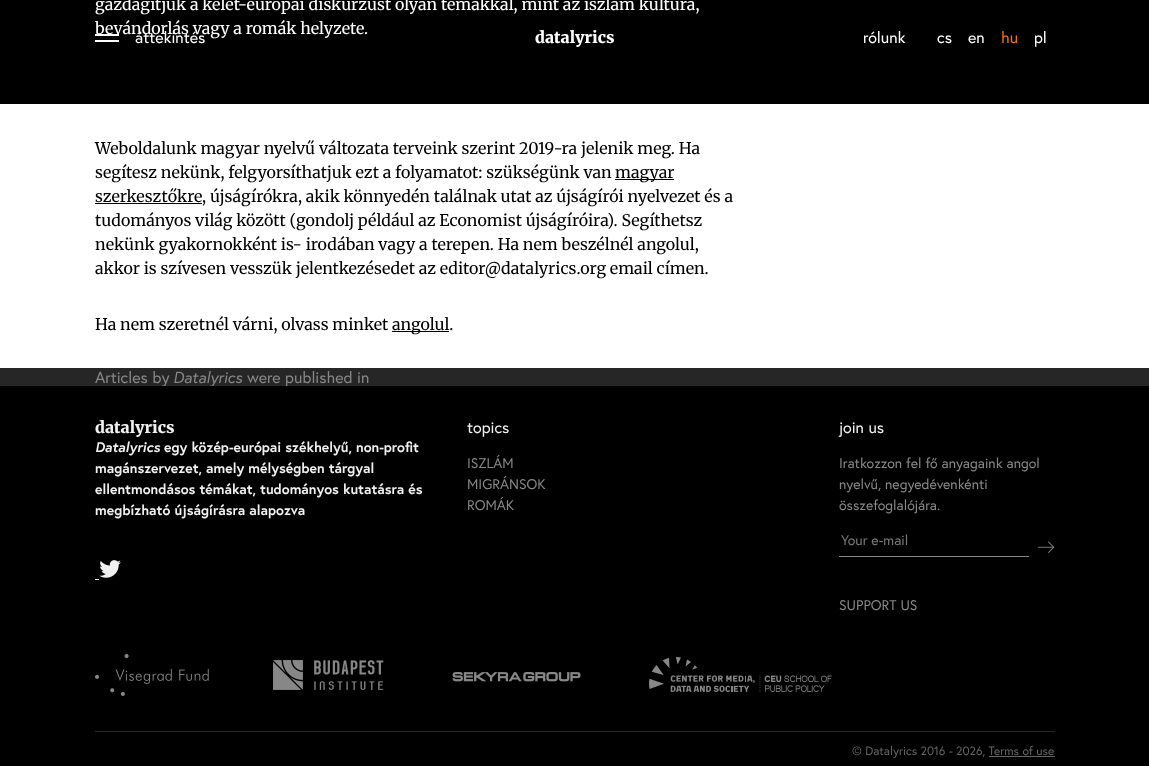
<!DOCTYPE html>
<meta charset="utf-8">
<style>body { margin: 0 } canvas { display: block }</style>
<canvas id="canvas" width="1149" height="766"></canvas>
<img id="img1" src="img_01.png" hidden>
<img id="img2" src="img_02.png" hidden>
<img id="img3" src="img_03.png" hidden>
<img id="img4" src="img_04.png" hidden>
<img id="img5" src="img_05.png" hidden>
<img id="img6" src="img_06.png" hidden>
<script>
window.onload = function () {
	const canvas = document.getElementById("canvas");
	const ctx = canvas.getContext("2d");
	ctx.miterLimit = 4;
	ctx.fontKerning = "normal";
	function txt(s, x, y) {
		ctx.fillText(s, x, y);
	}
	function fill(x, y, w, h) {
		ctx.fillRect(x, y, w, h);
	}
	function img(id, x, y, w, h) {
		ctx.drawImage(document.getElementById(id), x, y, w, h);
	}

	ctx.fillStyle = "#FFFFFF";
	fill(0, 0, 1149, 766);
	ctx.fillStyle = "#000000";
	fill(0, 0, 1149, 104);
	ctx.fillStyle = "#FFFFFF";
	fill(95, 34, 24, 2);
	fill(95, 40, 24, 2);
	ctx.fillStyle = "#000000";
	fill(615, 179, 59, 1);
	fill(95, 203, 107, 1);
	fill(392, 331, 57, 1);
	ctx.fillStyle = "#262626";
	fill(0, 368, 1149, 18);
	ctx.font = "16px Merriweather";
	ctx.fillStyle = "#FFFFFF";
	txt("gazdagítjuk a kelet-európai diskurzust olyan témákkal, mint az iszlám kultúra,", 95, 10);
	txt("bevándorlás vagy a romák helyzete.", 95, 34);
	ctx.font = "16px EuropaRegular";
	txt("áttekintés", 135, 43);
	ctx.font = "900 16px Merriweather";
	txt("datalyrics", 535, 43);
	ctx.font = "16px EuropaRegular";
	txt("rólunk", 863, 43);
	txt("cs", 937, 43);
	txt("en", 968, 43);
	ctx.fillStyle = "#F27023";
	txt("hu", 1001, 43);
	ctx.fillStyle = "#FFFFFF";
	txt("pl", 1034, 43);
	ctx.font = "16px Merriweather";
	ctx.fillStyle = "#000000";
	txt("Weboldalunk magyar nyelvű változata terveink szerint 2019-ra jelenik meg. Ha", 95, 154);
	txt("segítesz nekünk, felgyorsíthatjuk ezt a folyamatot: szükségünk van", 95, 178);
	txt("magyar", 615, 178);
	txt("szerkesztőkre, újságírókra, akik könnyedén találnak utat az újságírói nyelvezet és a", 95, 202);
	txt("tudományos világ között (gondolj például az Economist újságíróira). Segíthetsz", 95, 226);
	txt("nekünk gyakornokként is- irodában vagy a terepen. Ha nem beszélnél angolul,", 95, 250);
	txt("akkor is szívesen vesszük jelentkezésedet az editor@datalyrics.org email címen.", 95, 274);
	txt("Ha nem szeretnél várni, olvass minket", 95, 330);
	txt("angolul.", 392, 330);
	ctx.font = "16px EuropaRegular";
	ctx.fillStyle = "#878787";
	txt("Articles by", 95, 383);
	ctx.font = "italic 16px EuropaRegular";
	txt("Datalyrics", 173, 383);
	ctx.font = "16px EuropaRegular";
	txt("were published in", 247, 383);
	ctx.fillStyle = "#000000";
	fill(0, 386, 1149, 380);
	ctx.font = "900 16px Merriweather";
	ctx.fillStyle = "#F0F0F0";
	txt("datalyrics", 95, 433);
	ctx.font = "italic bold 14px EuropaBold";
	txt("Datalyrics", 95, 452);
	ctx.font = "bold 14px EuropaBold";
	txt("egy közép-európai székhelyű, non-profit", 164, 452);
	txt("magánszervezet, amely mélységben tárgyal", 95, 473);
	txt("ellentmondásos témákat, tudományos kutatásra és", 95, 494);
	txt("megbízható újságírásra alapozva", 95, 515);
	img("img1", 99, 560, 22, 18);
	fill(95, 579, 4, 1);
	ctx.font = "16px EuropaRegular";
	txt("topics", 467, 433);
	ctx.font = "14px EuropaRegular";
	ctx.fillStyle = "#878787";
	txt("ISZLÁM", 467, 468);
	txt("MIGRÁNSOK", 467, 489);
	txt("ROMÁK", 467, 510);
	ctx.font = "16px EuropaRegular";
	ctx.fillStyle = "#F0F0F0";
	txt("join us", 839, 433);
	ctx.font = "14px EuropaRegular";
	ctx.fillStyle = "#878787";
	txt("Iratkozzon fel fő anyagaink angol", 839, 468);
	txt("nyelvű, negyedévenkénti", 839, 489);
	txt("összefoglalójára.", 839, 510);
	fill(839, 556, 190, 1);
	ctx.fillStyle = "#787878";
	txt("Your e-mail", 841, 545);
	img("img2", 1037, 541, 18, 12);
	ctx.fillStyle = "#878787";
	txt("SUPPORT US", 839, 610);
	img("img3", 95, 654, 114, 42);
	img("img4", 273, 660, 111, 30);
	img("img5", 452, 672, 129, 10);
	img("img6", 649, 657, 183, 35);
	ctx.fillStyle = "#262626";
	fill(95, 731, 960, 1);
	ctx.font = "12px EuropaRegular";
	ctx.fillStyle = "#646464";
	txt("© Datalyrics 2016 - 2026, Terms of use", 852, 755);
	fill(989, 756, 66, 1);
};
</script>
